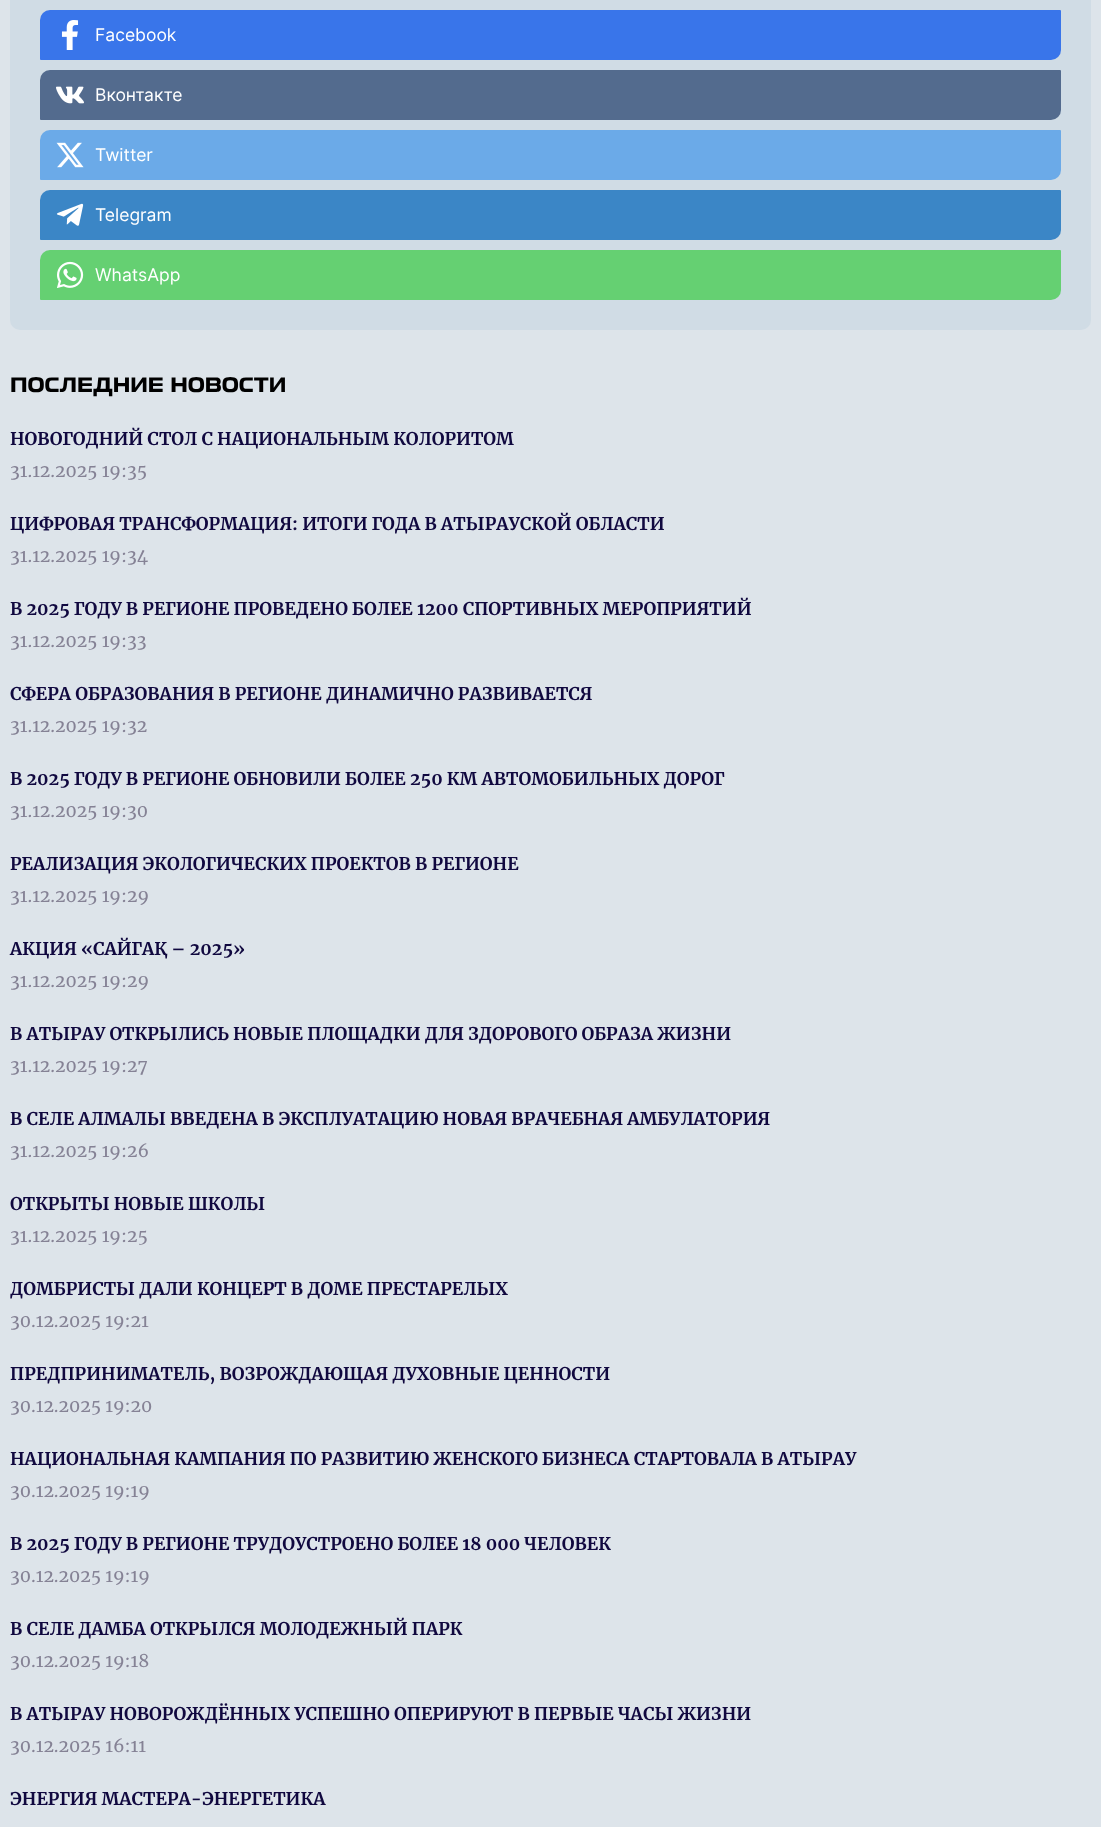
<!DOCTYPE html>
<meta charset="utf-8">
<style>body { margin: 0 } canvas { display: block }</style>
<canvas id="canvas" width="1101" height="1827"></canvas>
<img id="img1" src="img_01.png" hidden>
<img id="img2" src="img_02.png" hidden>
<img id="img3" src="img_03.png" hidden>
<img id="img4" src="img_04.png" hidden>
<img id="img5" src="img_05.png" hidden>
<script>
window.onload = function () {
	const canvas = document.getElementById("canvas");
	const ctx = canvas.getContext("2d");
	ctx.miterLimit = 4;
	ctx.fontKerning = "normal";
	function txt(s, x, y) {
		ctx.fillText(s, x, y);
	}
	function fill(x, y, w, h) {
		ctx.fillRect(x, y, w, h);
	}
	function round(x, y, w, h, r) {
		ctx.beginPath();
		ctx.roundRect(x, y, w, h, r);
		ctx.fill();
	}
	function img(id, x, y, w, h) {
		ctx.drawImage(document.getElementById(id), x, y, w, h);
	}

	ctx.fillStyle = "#DDE4EA";
	fill(0, 0, 1101, 1827);
	ctx.fillStyle = "#D0DCE5";
	round(10, -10, 1081, 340, 10);
	ctx.fillStyle = "#3975EA";
	ctx.beginPath();
	ctx.roundRect(40, 10, 1021, 50, [10, 1, 10, 1]);
	ctx.fill();
	img("img1", 61, 20, 18, 30);
	ctx.fillStyle = "#536B8E";
	ctx.beginPath();
	ctx.roundRect(40, 70, 1021, 50, [10, 1, 10, 1]);
	ctx.fill();
	img("img2", 56, 86, 28, 18);
	ctx.fillStyle = "#6BAAE8";
	ctx.beginPath();
	ctx.roundRect(40, 130, 1021, 50, [10, 1, 10, 1]);
	ctx.fill();
	img("img3", 56, 142, 28, 26);
	ctx.fillStyle = "#3B86C6";
	ctx.beginPath();
	ctx.roundRect(40, 190, 1021, 50, [10, 1, 10, 1]);
	ctx.fill();
	img("img4", 56, 203, 28, 23);
	ctx.fillStyle = "#65D072";
	ctx.beginPath();
	ctx.roundRect(40, 250, 1021, 50, [10, 1, 10, 1]);
	ctx.fill();
	img("img5", 57, 261, 27, 27);
	ctx.font = "17.5px Inter";
	ctx.fillStyle = "#FFFFFF";
	txt("Facebook", 95, 41);
	txt("Вконтакте", 95, 101);
	txt("Twitter", 95, 161);
	txt("Telegram", 95, 221);
	txt("WhatsApp", 95, 281);
	ctx.font = "bold 20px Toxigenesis";
	ctx.fillStyle = "#000000";
	txt("ПОСЛЕДНИЕ НОВОСТИ", 10, 392);
	ctx.font = "bold 17.5px Merriweather";
	ctx.fillStyle = "#10083F";
	txt("НОВОГОДНИЙ СТОЛ С НАЦИОНАЛЬНЫМ КОЛОРИТОМ", 10, 445);
	ctx.font = "17.5px Merriweather";
	ctx.fillStyle = "#858295";
	txt("31.12.2025 19:35", 10, 477);
	ctx.font = "bold 17.5px Merriweather";
	ctx.fillStyle = "#10083F";
	txt("ЦИФРОВАЯ ТРАНСФОРМАЦИЯ: ИТОГИ ГОДА В АТЫРАУСКОЙ ОБЛАСТИ", 10, 530);
	ctx.font = "17.5px Merriweather";
	ctx.fillStyle = "#858295";
	txt("31.12.2025 19:34", 10, 562);
	ctx.font = "bold 17.5px Merriweather";
	ctx.fillStyle = "#10083F";
	txt("В 2025 ГОДУ В РЕГИОНЕ ПРОВЕДЕНО БОЛЕЕ 1200 СПОРТИВНЫХ МЕРОПРИЯТИЙ", 10, 615);
	ctx.font = "17.5px Merriweather";
	ctx.fillStyle = "#858295";
	txt("31.12.2025 19:33", 10, 647);
	ctx.font = "bold 17.5px Merriweather";
	ctx.fillStyle = "#10083F";
	txt("СФЕРА ОБРАЗОВАНИЯ В РЕГИОНЕ ДИНАМИЧНО РАЗВИВАЕТСЯ", 10, 700);
	ctx.font = "17.5px Merriweather";
	ctx.fillStyle = "#858295";
	txt("31.12.2025 19:32", 10, 732);
	ctx.font = "bold 17.5px Merriweather";
	ctx.fillStyle = "#10083F";
	txt("В 2025 ГОДУ В РЕГИОНЕ ОБНОВИЛИ БОЛЕЕ 250 КМ АВТОМОБИЛЬНЫХ ДОРОГ", 10, 785);
	ctx.font = "17.5px Merriweather";
	ctx.fillStyle = "#858295";
	txt("31.12.2025 19:30", 10, 817);
	ctx.font = "bold 17.5px Merriweather";
	ctx.fillStyle = "#10083F";
	txt("РЕАЛИЗАЦИЯ ЭКОЛОГИЧЕСКИХ ПРОЕКТОВ В РЕГИОНЕ", 10, 870);
	ctx.font = "17.5px Merriweather";
	ctx.fillStyle = "#858295";
	txt("31.12.2025 19:29", 10, 902);
	ctx.font = "bold 17.5px Merriweather";
	ctx.fillStyle = "#10083F";
	txt("АКЦИЯ «САЙГАҚ – 2025»", 10, 955);
	ctx.font = "17.5px Merriweather";
	ctx.fillStyle = "#858295";
	txt("31.12.2025 19:29", 10, 987);
	ctx.font = "bold 17.5px Merriweather";
	ctx.fillStyle = "#10083F";
	txt("В АТЫРАУ ОТКРЫЛИСЬ НОВЫЕ ПЛОЩАДКИ ДЛЯ ЗДОРОВОГО ОБРАЗА ЖИЗНИ", 10, 1040);
	ctx.font = "17.5px Merriweather";
	ctx.fillStyle = "#858295";
	txt("31.12.2025 19:27", 10, 1072);
	ctx.font = "bold 17.5px Merriweather";
	ctx.fillStyle = "#10083F";
	txt("В СЕЛЕ АЛМАЛЫ ВВЕДЕНА В ЭКСПЛУАТАЦИЮ НОВАЯ ВРАЧЕБНАЯ АМБУЛАТОРИЯ", 10, 1125);
	ctx.font = "17.5px Merriweather";
	ctx.fillStyle = "#858295";
	txt("31.12.2025 19:26", 10, 1157);
	ctx.font = "bold 17.5px Merriweather";
	ctx.fillStyle = "#10083F";
	txt("ОТКРЫТЫ НОВЫЕ ШКОЛЫ", 10, 1210);
	ctx.font = "17.5px Merriweather";
	ctx.fillStyle = "#858295";
	txt("31.12.2025 19:25", 10, 1242);
	ctx.font = "bold 17.5px Merriweather";
	ctx.fillStyle = "#10083F";
	txt("ДОМБРИСТЫ ДАЛИ КОНЦЕРТ В ДОМЕ ПРЕСТАРЕЛЫХ", 10, 1295);
	ctx.font = "17.5px Merriweather";
	ctx.fillStyle = "#858295";
	txt("30.12.2025 19:21", 10, 1327);
	ctx.font = "bold 17.5px Merriweather";
	ctx.fillStyle = "#10083F";
	txt("ПРЕДПРИНИМАТЕЛЬ, ВОЗРОЖДАЮЩАЯ ДУХОВНЫЕ ЦЕННОСТИ", 10, 1380);
	ctx.font = "17.5px Merriweather";
	ctx.fillStyle = "#858295";
	txt("30.12.2025 19:20", 10, 1412);
	ctx.font = "bold 17.5px Merriweather";
	ctx.fillStyle = "#10083F";
	txt("НАЦИОНАЛЬНАЯ КАМПАНИЯ ПО РАЗВИТИЮ ЖЕНСКОГО БИЗНЕСА СТАРТОВАЛА В АТЫРАУ", 10, 1465);
	ctx.font = "17.5px Merriweather";
	ctx.fillStyle = "#858295";
	txt("30.12.2025 19:19", 10, 1497);
	ctx.font = "bold 17.5px Merriweather";
	ctx.fillStyle = "#10083F";
	txt("В 2025 ГОДУ В РЕГИОНЕ ТРУДОУСТРОЕНО БОЛЕЕ 18 000 ЧЕЛОВЕК", 10, 1550);
	ctx.font = "17.5px Merriweather";
	ctx.fillStyle = "#858295";
	txt("30.12.2025 19:19", 10, 1582);
	ctx.font = "bold 17.5px Merriweather";
	ctx.fillStyle = "#10083F";
	txt("В СЕЛЕ ДАМБА ОТКРЫЛСЯ МОЛОДЕЖНЫЙ ПАРК", 10, 1635);
	ctx.font = "17.5px Merriweather";
	ctx.fillStyle = "#858295";
	txt("30.12.2025 19:18", 10, 1667);
	ctx.font = "bold 17.5px Merriweather";
	ctx.fillStyle = "#10083F";
	txt("В АТЫРАУ НОВОРОЖДЁННЫХ УСПЕШНО ОПЕРИРУЮТ В ПЕРВЫЕ ЧАСЫ ЖИЗНИ", 10, 1720);
	ctx.font = "17.5px Merriweather";
	ctx.fillStyle = "#858295";
	txt("30.12.2025 16:11", 10, 1752);
	ctx.font = "bold 17.5px Merriweather";
	ctx.fillStyle = "#10083F";
	txt("ЭНЕРГИЯ МАСТЕРА-ЭНЕРГЕТИКА", 10, 1805);
};
</script>
